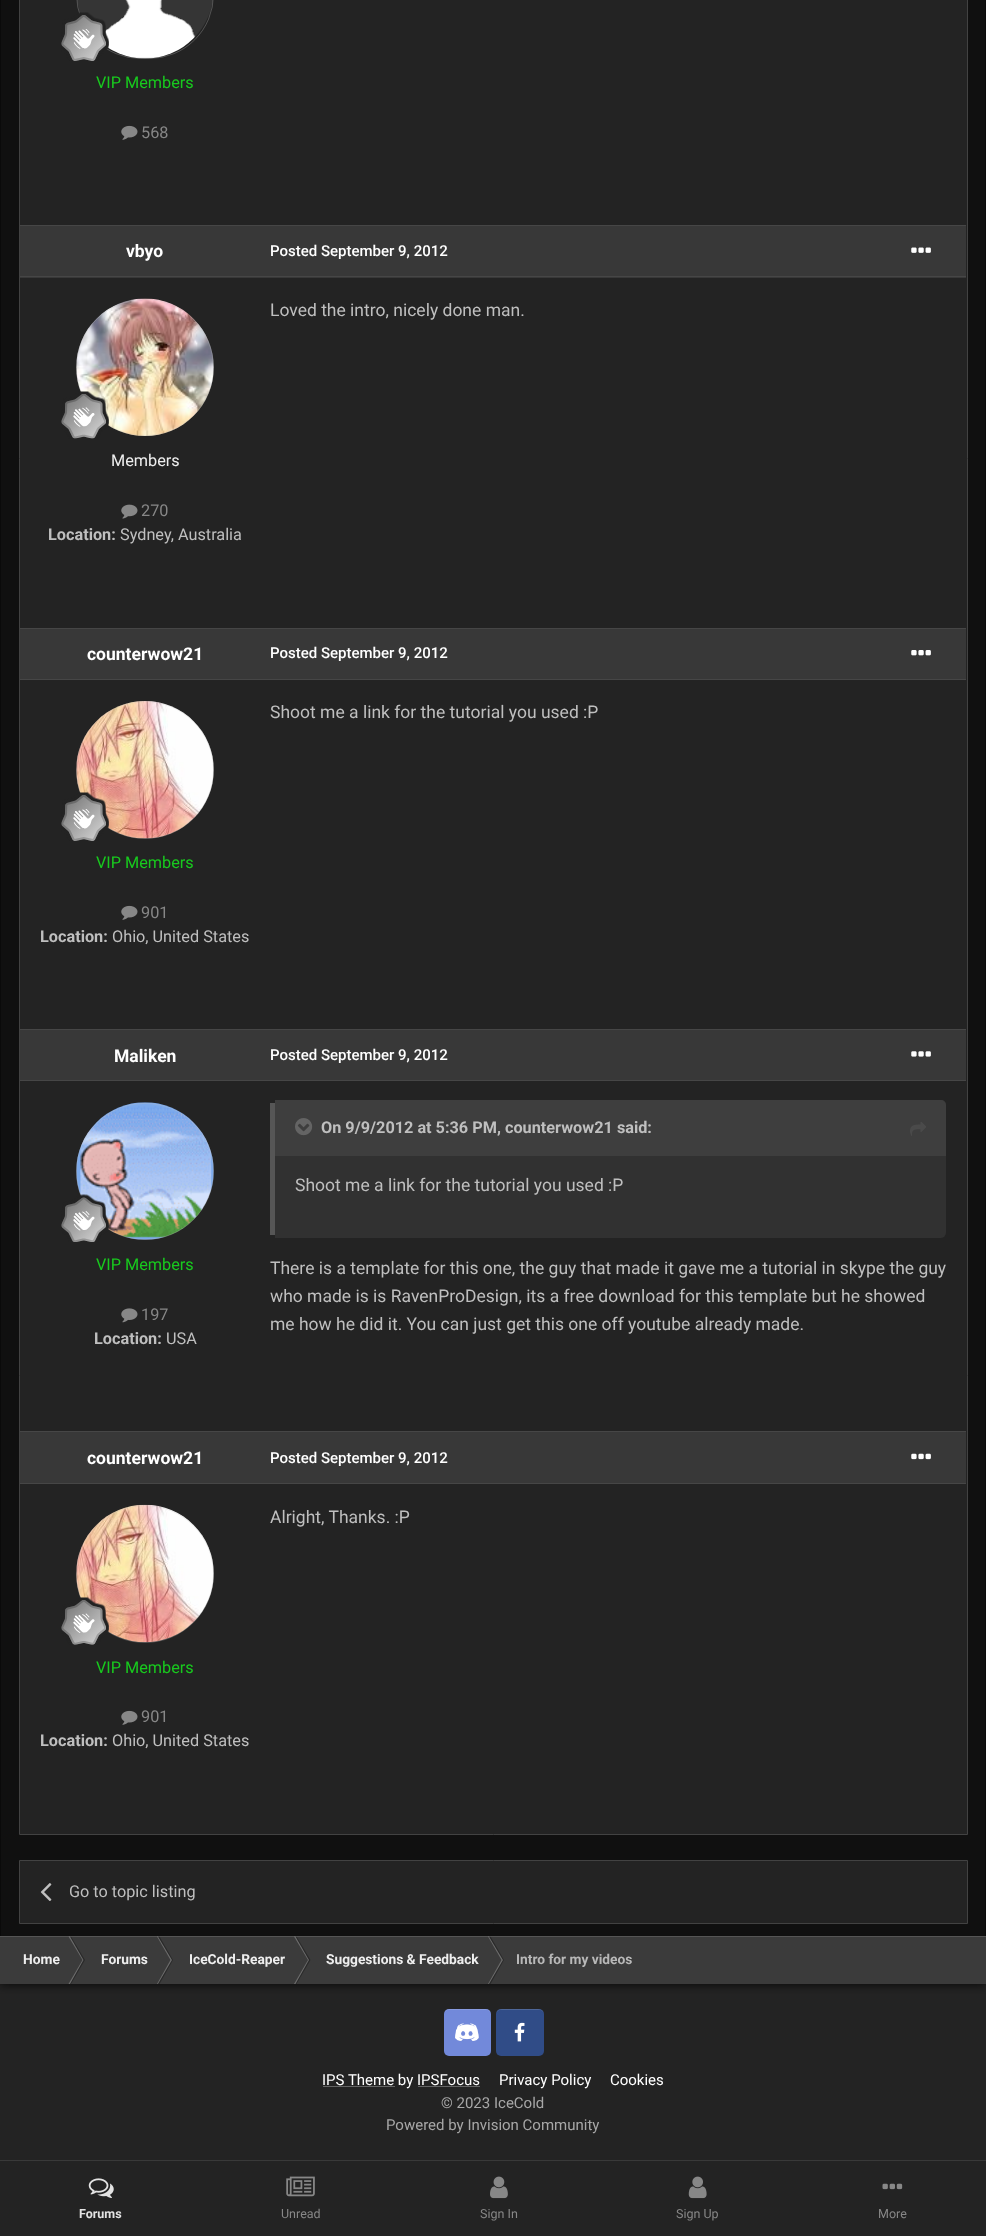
<!DOCTYPE html>
<meta charset="utf-8">
<style>body { margin: 0 } canvas { display: block }</style>
<canvas id="canvas" width="986" height="2236"></canvas>
<img id="img1" src="img_01.png" hidden>
<img id="img2" src="img_02.png" hidden>
<img id="img3" src="img_03.png" hidden>
<img id="img4" src="img_04.png" hidden>
<img id="img5" src="img_05.png" hidden>
<img id="img6" src="img_06.png" hidden>
<img id="img7" src="img_07.png" hidden>
<img id="img8" src="img_08.png" hidden>
<img id="img9" src="img_09.png" hidden>
<img id="img10" src="img_10.png" hidden>
<img id="img11" src="img_11.png" hidden>
<img id="img12" src="img_12.png" hidden>
<img id="img13" src="img_13.png" hidden>
<img id="img14" src="img_14.png" hidden>
<img id="img15" src="img_15.png" hidden>
<img id="img16" src="img_16.png" hidden>
<img id="img17" src="img_17.png" hidden>
<img id="img18" src="img_18.png" hidden>
<img id="img19" src="img_19.png" hidden>
<img id="img20" src="img_20.png" hidden>
<img id="img21" src="img_21.png" hidden>
<img id="img22" src="img_22.png" hidden>
<img id="img23" src="img_23.png" hidden>
<img id="img24" src="img_24.png" hidden>
<img id="img25" src="img_25.png" hidden>
<img id="img26" src="img_26.png" hidden>
<img id="img27" src="img_27.png" hidden>
<script>
window.onload = function () {
	const canvas = document.getElementById("canvas");
	const ctx = canvas.getContext("2d");
	ctx.miterLimit = 4;
	ctx.fontKerning = "normal";
	function txt(s, x, y) {
		ctx.fillText(s, x, y);
	}
	function fill(x, y, w, h) {
		ctx.fillRect(x, y, w, h);
	}
	function round(x, y, w, h, r) {
		ctx.beginPath();
		ctx.roundRect(x, y, w, h, r);
		ctx.fill();
	}
	function img(id, x, y, w, h) {
		ctx.drawImage(document.getElementById(id), x, y, w, h);
	}

	ctx.fillStyle = "#232323";
	fill(0, 0, 986, 2236);
	ctx.save();
	ctx.beginPath();
	ctx.rect(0, 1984, 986, 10);
	ctx.clip();
	ctx.fillStyle = "rgba(0, 0, 0, 0.7)";
	ctx.filter = "blur(5px)";
	ctx.beginPath();
	ctx.rect(0, -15, 986, 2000);
	ctx.fill();
	ctx.filter = "none";
	ctx.restore();
	ctx.fillStyle = "rgba(15, 15, 15, 0.93)";
	fill(1, 0, 984, 1936);
	ctx.strokeStyle = "#0A0A0A";
	ctx.strokeRect(0.5, -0.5, 985, 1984);
	ctx.fillStyle = "#232323";
	ctx.beginPath();
	ctx.rect(19.5, -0.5, 948, 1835);
	ctx.fill();
	ctx.strokeStyle = "#424242";
	ctx.stroke();
	img("img1", 77, 0, 136, 59);
	ctx.beginPath();
	ctx.roundRect(76.5, -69.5, 137, 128, 68.5);
	ctx.strokeStyle = "rgba(191, 191, 191, 0.3)";
	ctx.stroke();
	img("img2", 61, 12, 48, 49);
	img("img3", 121, 125, 17, 15);
	ctx.fillStyle = "#383838";
	fill(20, 226, 946, 52);
	ctx.fillStyle = "#464646";
	fill(20, 225, 946, 1);
	fill(20, 276, 946, 1);
	img("img4", 76, 298, 138, 138);
	ctx.beginPath();
	ctx.roundRect(76.5, 299.5, 137, 136, 68);
	ctx.stroke();
	img("img5", 61, 391, 48, 48);
	img("img6", 121, 504, 17, 15);
	img("img7", 911, 247, 20, 6);
	ctx.fillStyle = "#383838";
	fill(20, 629, 946, 50);
	ctx.fillStyle = "#464646";
	fill(20, 628, 946, 1);
	fill(20, 679, 946, 1);
	img("img8", 76, 701, 138, 138);
	ctx.beginPath();
	ctx.arc(145, 770, 68.5, 0, Math.PI * 2);
	ctx.stroke();
	img("img9", 61, 792, 48, 49);
	img("img3", 121, 905, 17, 15);
	img("img10", 911, 650, 20, 6);
	ctx.fillStyle = "#383838";
	fill(20, 1030, 946, 50);
	ctx.fillStyle = "#464646";
	fill(20, 1029, 946, 1);
	fill(20, 1080, 946, 1);
	img("img11", 76, 1102, 138, 138);
	ctx.beginPath();
	ctx.roundRect(76.5, 1103.5, 137, 136, 68);
	ctx.stroke();
	img("img12", 61, 1194, 48, 48);
	img("img13", 121, 1308, 17, 15);
	img("img14", 911, 1051, 20, 6);
	ctx.fillStyle = "#313131";
	ctx.beginPath();
	ctx.moveTo(275, 1100);
	ctx.lineTo(941, 1100);
	ctx.bezierCurveTo(944, 1100, 946, 1102, 946, 1105);
	ctx.lineTo(946, 1232);
	ctx.bezierCurveTo(946, 1235, 944, 1238, 941, 1238);
	ctx.lineTo(275, 1238);
	ctx.closePath();
	ctx.fill();
	ctx.fillStyle = "#565656";
	fill(270, 1103, 5, 132);
	ctx.fillStyle = "#3E3E3E";
	ctx.beginPath();
	ctx.roundRect(275, 1100, 671, 56, [0, 5, 0, 0]);
	ctx.fill();
	img("img15", 295, 1118, 18, 18);
	img("img16", 910, 1122, 16, 14);
	ctx.fillStyle = "#383838";
	fill(20, 1432, 946, 51);
	ctx.fillStyle = "#464646";
	fill(20, 1431, 946, 1);
	fill(20, 1483, 946, 1);
	img("img17", 76, 1504, 138, 139);
	ctx.beginPath();
	ctx.arc(145, 1574, 68.5, 0, Math.PI * 2);
	ctx.stroke();
	img("img18", 61, 1597, 48, 48);
	img("img3", 121, 1710, 17, 15);
	img("img19", 911, 1453, 20, 7);
	ctx.fillStyle = "#232323";
	ctx.beginPath();
	ctx.rect(19.5, 1860.5, 948, 63);
	ctx.fill();
	ctx.strokeStyle = "#424242";
	ctx.stroke();
	img("img20", 40, 1883, 12, 18);
	ctx.fillStyle = "#3B3B3B";
	fill(0, 1936, 986, 48);
	ctx.fillStyle = "#6C6C6C";
	ctx.beginPath();
	ctx.moveTo(68.5, 1936.5);
	ctx.lineTo(70, 1936.5);
	ctx.lineTo(83.5, 1960);
	ctx.lineTo(82.5, 1960);
	ctx.closePath();
	ctx.fill();
	ctx.fillStyle = "rgba(0, 0, 0, 0.3)";
	ctx.beginPath();
	ctx.moveTo(70, 1936.5);
	ctx.lineTo(71, 1936.5);
	ctx.lineTo(85, 1960);
	ctx.lineTo(83.5, 1960);
	ctx.closePath();
	ctx.fill();
	ctx.fillStyle = "#6C6C6C";
	ctx.beginPath();
	ctx.moveTo(157, 1936.5);
	ctx.lineTo(158, 1936.5);
	ctx.lineTo(172, 1960);
	ctx.lineTo(170.5, 1960);
	ctx.closePath();
	ctx.fill();
	ctx.fillStyle = "rgba(0, 0, 0, 0.3)";
	ctx.beginPath();
	ctx.moveTo(158, 1936.5);
	ctx.lineTo(159.5, 1936.5);
	ctx.lineTo(173, 1960);
	ctx.lineTo(172, 1960);
	ctx.closePath();
	ctx.fill();
	ctx.fillStyle = "#6C6C6C";
	ctx.beginPath();
	ctx.moveTo(294, 1936.5);
	ctx.lineTo(295.5, 1936.5);
	ctx.lineTo(309, 1960);
	ctx.lineTo(308, 1960);
	ctx.closePath();
	ctx.fill();
	ctx.fillStyle = "rgba(0, 0, 0, 0.3)";
	ctx.beginPath();
	ctx.moveTo(295.5, 1936.5);
	ctx.lineTo(296.5, 1936.5);
	ctx.lineTo(310.5, 1960);
	ctx.lineTo(309, 1960);
	ctx.closePath();
	ctx.fill();
	ctx.fillStyle = "#6C6C6C";
	ctx.beginPath();
	ctx.moveTo(488, 1936.5);
	ctx.lineTo(489, 1936.5);
	ctx.lineTo(503, 1960);
	ctx.lineTo(501.5, 1960);
	ctx.closePath();
	ctx.fill();
	ctx.fillStyle = "rgba(0, 0, 0, 0.3)";
	ctx.beginPath();
	ctx.moveTo(489, 1936.5);
	ctx.lineTo(490.5, 1936.5);
	ctx.lineTo(504, 1960);
	ctx.lineTo(503, 1960);
	ctx.closePath();
	ctx.fill();
	ctx.fillStyle = "rgba(191, 191, 191, 0.2)";
	fill(0, 1936, 986, 1);
	ctx.fillStyle = "#6C6C6C";
	ctx.beginPath();
	ctx.moveTo(68.5, 1984);
	ctx.lineTo(70, 1984);
	ctx.lineTo(83.5, 1960);
	ctx.lineTo(82.5, 1960);
	ctx.closePath();
	ctx.fill();
	ctx.fillStyle = "rgba(0, 0, 0, 0.3)";
	ctx.beginPath();
	ctx.moveTo(70, 1984);
	ctx.lineTo(71, 1984);
	ctx.lineTo(85, 1960);
	ctx.lineTo(83.5, 1960);
	ctx.closePath();
	ctx.fill();
	ctx.fillStyle = "#6C6C6C";
	ctx.beginPath();
	ctx.moveTo(157, 1984);
	ctx.lineTo(158, 1984);
	ctx.lineTo(172, 1960);
	ctx.lineTo(170.5, 1960);
	ctx.closePath();
	ctx.fill();
	ctx.fillStyle = "rgba(0, 0, 0, 0.3)";
	ctx.beginPath();
	ctx.moveTo(158, 1984);
	ctx.lineTo(159.5, 1984);
	ctx.lineTo(173, 1960);
	ctx.lineTo(172, 1960);
	ctx.closePath();
	ctx.fill();
	ctx.fillStyle = "#6C6C6C";
	ctx.beginPath();
	ctx.moveTo(294, 1984);
	ctx.lineTo(295.5, 1984);
	ctx.lineTo(309, 1960);
	ctx.lineTo(308, 1960);
	ctx.closePath();
	ctx.fill();
	ctx.fillStyle = "rgba(0, 0, 0, 0.3)";
	ctx.beginPath();
	ctx.moveTo(295.5, 1984);
	ctx.lineTo(296.5, 1984);
	ctx.lineTo(310.5, 1960);
	ctx.lineTo(309, 1960);
	ctx.closePath();
	ctx.fill();
	ctx.fillStyle = "#6C6C6C";
	ctx.beginPath();
	ctx.moveTo(488, 1984);
	ctx.lineTo(489, 1984);
	ctx.lineTo(503, 1960);
	ctx.lineTo(501.5, 1960);
	ctx.closePath();
	ctx.fill();
	ctx.fillStyle = "rgba(0, 0, 0, 0.3)";
	ctx.beginPath();
	ctx.moveTo(489, 1984);
	ctx.lineTo(490.5, 1984);
	ctx.lineTo(504, 1960);
	ctx.lineTo(503, 1960);
	ctx.closePath();
	ctx.fill();
	ctx.fillStyle = "#7289DA";
	round(444, 2009, 47, 47, 5);
	ctx.fillStyle = "rgba(255, 255, 255, 0.15)";
	ctx.beginPath();
	ctx.moveTo(449, 2010);
	ctx.bezierCurveTo(446, 2010, 444, 2012, 444, 2015);
	ctx.bezierCurveTo(444, 2008, 450, 2009, 455, 2009);
	ctx.lineTo(480, 2009);
	ctx.bezierCurveTo(485, 2009, 491, 2008, 491, 2015);
	ctx.bezierCurveTo(491, 2012, 489, 2010, 486, 2010);
	ctx.closePath();
	ctx.fill();
	img("img21", 455, 2023, 24, 18);
	ctx.fillStyle = "#304C87";
	round(496, 2009, 48, 47, 5);
	ctx.fillStyle = "rgba(255, 255, 255, 0.15)";
	ctx.beginPath();
	ctx.moveTo(501, 2010);
	ctx.bezierCurveTo(498, 2010, 496, 2012, 496, 2015);
	ctx.bezierCurveTo(496, 2008, 502, 2009, 507, 2009);
	ctx.lineTo(533, 2009);
	ctx.bezierCurveTo(538, 2009, 544, 2008, 544, 2015);
	ctx.bezierCurveTo(544, 2012, 542, 2010, 539, 2010);
	ctx.closePath();
	ctx.fill();
	img("img22", 514, 2022, 11, 20);
	ctx.fillStyle = "#656565";
	fill(323, 2086, 72, 1);
	ctx.fillStyle = "#393939";
	fill(0, 2160, 986, 1);
	img("img23", 88, 2178, 26, 20);
	img("img24", 286, 2176, 29, 21);
	img("img25", 490, 2176, 18, 23);
	img("img26", 688, 2176, 19, 23);
	img("img27", 882, 2183, 21, 7);
	ctx.font = "16.25px Roboto";
	ctx.fillStyle = "#18C91E";
	txt("VIP Members", 96, 88);
	ctx.fillStyle = "#878787";
	txt("568", 141, 138);
	ctx.font = "bold 17.5px Roboto";
	ctx.fillStyle = "#FFFFFF";
	txt("vbyo", 126, 257);
	ctx.font = "16.25px Roboto";
	ctx.fillStyle = "#EEEEEE";
	txt("Members", 111, 466);
	ctx.fillStyle = "#878787";
	txt("270", 141, 516);
	ctx.font = "bold 16.25px Roboto";
	ctx.fillStyle = "#BFBFBF";
	txt("Location:", 48, 540);
	ctx.font = "16.25px Roboto";
	txt("Sydney, Australia", 120, 540);
	ctx.font = "500 15px Roboto";
	ctx.fillStyle = "#FFFFFF";
	txt("Posted September 9, 2012", 270, 256);
	ctx.font = "17.5px Roboto";
	ctx.fillStyle = "#BFBFBF";
	txt("Loved the intro, nicely done man.", 270, 316);
	ctx.font = "bold 17.5px Roboto";
	ctx.fillStyle = "#FFFFFF";
	txt("counterwow21", 87, 660);
	ctx.font = "16.25px Roboto";
	ctx.fillStyle = "#18C91E";
	txt("VIP Members", 96, 868);
	ctx.fillStyle = "#878787";
	txt("901", 141, 918);
	ctx.font = "bold 16.25px Roboto";
	ctx.fillStyle = "#BFBFBF";
	txt("Location:", 40, 942);
	ctx.font = "16.25px Roboto";
	txt("Ohio, United States", 112, 942);
	ctx.font = "500 15px Roboto";
	ctx.fillStyle = "#FFFFFF";
	txt("Posted September 9, 2012", 270, 658);
	ctx.font = "17.5px Roboto";
	ctx.fillStyle = "#BFBFBF";
	txt("Shoot me a link for the tutorial you used :P", 270, 718);
	ctx.font = "bold 17.5px Roboto";
	ctx.fillStyle = "#FFFFFF";
	txt("Maliken", 114, 1062);
	ctx.font = "16.25px Roboto";
	ctx.fillStyle = "#18C91E";
	txt("VIP Members", 96, 1270);
	ctx.fillStyle = "#878787";
	txt("197", 141, 1320);
	ctx.font = "bold 16.25px Roboto";
	ctx.fillStyle = "#BFBFBF";
	txt("Location:", 94, 1344);
	ctx.font = "16.25px Roboto";
	txt("USA", 166, 1344);
	ctx.font = "500 15px Roboto";
	ctx.fillStyle = "#FFFFFF";
	txt("Posted September 9, 2012", 270, 1060);
	ctx.font = "bold 16.25px Roboto";
	ctx.fillStyle = "#BFBFBF";
	txt("On 9/9/2012 at 5:36 PM, counterwow21 said:", 321, 1133);
	ctx.font = "17.5px Roboto";
	txt("Shoot me a link for the tutorial you used :P", 295, 1191);
	txt("There is a template for this one, the guy that made it gave me a tutorial in skype the guy", 270, 1274);
	txt("who made is is RavenProDesign, its a free download for this template but he showed", 270, 1302);
	txt("me how he did it. You can just get this one off youtube already made.", 270, 1330);
	ctx.font = "bold 17.5px Roboto";
	ctx.fillStyle = "#FFFFFF";
	txt("counterwow21", 87, 1464);
	ctx.font = "16.25px Roboto";
	ctx.fillStyle = "#18C91E";
	txt("VIP Members", 96, 1673);
	ctx.fillStyle = "#878787";
	txt("901", 141, 1722);
	ctx.font = "bold 16.25px Roboto";
	ctx.fillStyle = "#BFBFBF";
	txt("Location:", 40, 1746);
	ctx.font = "16.25px Roboto";
	txt("Ohio, United States", 112, 1746);
	ctx.font = "500 15px Roboto";
	ctx.fillStyle = "#FFFFFF";
	txt("Posted September 9, 2012", 270, 1463);
	ctx.font = "17.5px Roboto";
	ctx.fillStyle = "#BFBFBF";
	txt("Alright, Thanks. :P", 270, 1523);
	ctx.font = "16.25px Roboto";
	txt("Go to topic listing", 69, 1897);
	ctx.font = "bold 13.75px Roboto";
	ctx.fillStyle = "#EEEEEE";
	txt("Home", 23, 1964);
	txt("Forums", 101, 1964);
	txt("IceCold-Reaper", 189, 1964);
	txt("Suggestions & Feedback", 326, 1964);
	ctx.fillStyle = "#B8B8B8";
	txt("Intro for my videos", 516, 1964);
	ctx.font = "15px Roboto";
	ctx.fillStyle = "#FFFFFF";
	txt("IPS Theme by IPSFocus", 322, 2085);
	ctx.fillStyle = "#656565";
	fill(418, 2086, 62, 1);
	ctx.fillStyle = "#FFFFFF";
	txt("Privacy Policy", 499, 2085);
	txt("Cookies", 610, 2085);
	ctx.fillStyle = "#A7A7A7";
	txt("© 2023 IceCold", 441, 2108);
	txt("Powered by Invision Community", 386, 2130);
	ctx.font = "bold 12.5px Roboto";
	ctx.fillStyle = "#E3E3E3";
	txt("Forums", 79, 2218);
	ctx.font = "12.5px Roboto";
	ctx.fillStyle = "#878787";
	txt("Unread", 281, 2218);
	txt("Sign In", 480, 2218);
	txt("Sign Up", 676, 2218);
	txt("More", 878, 2218);
};
</script>
